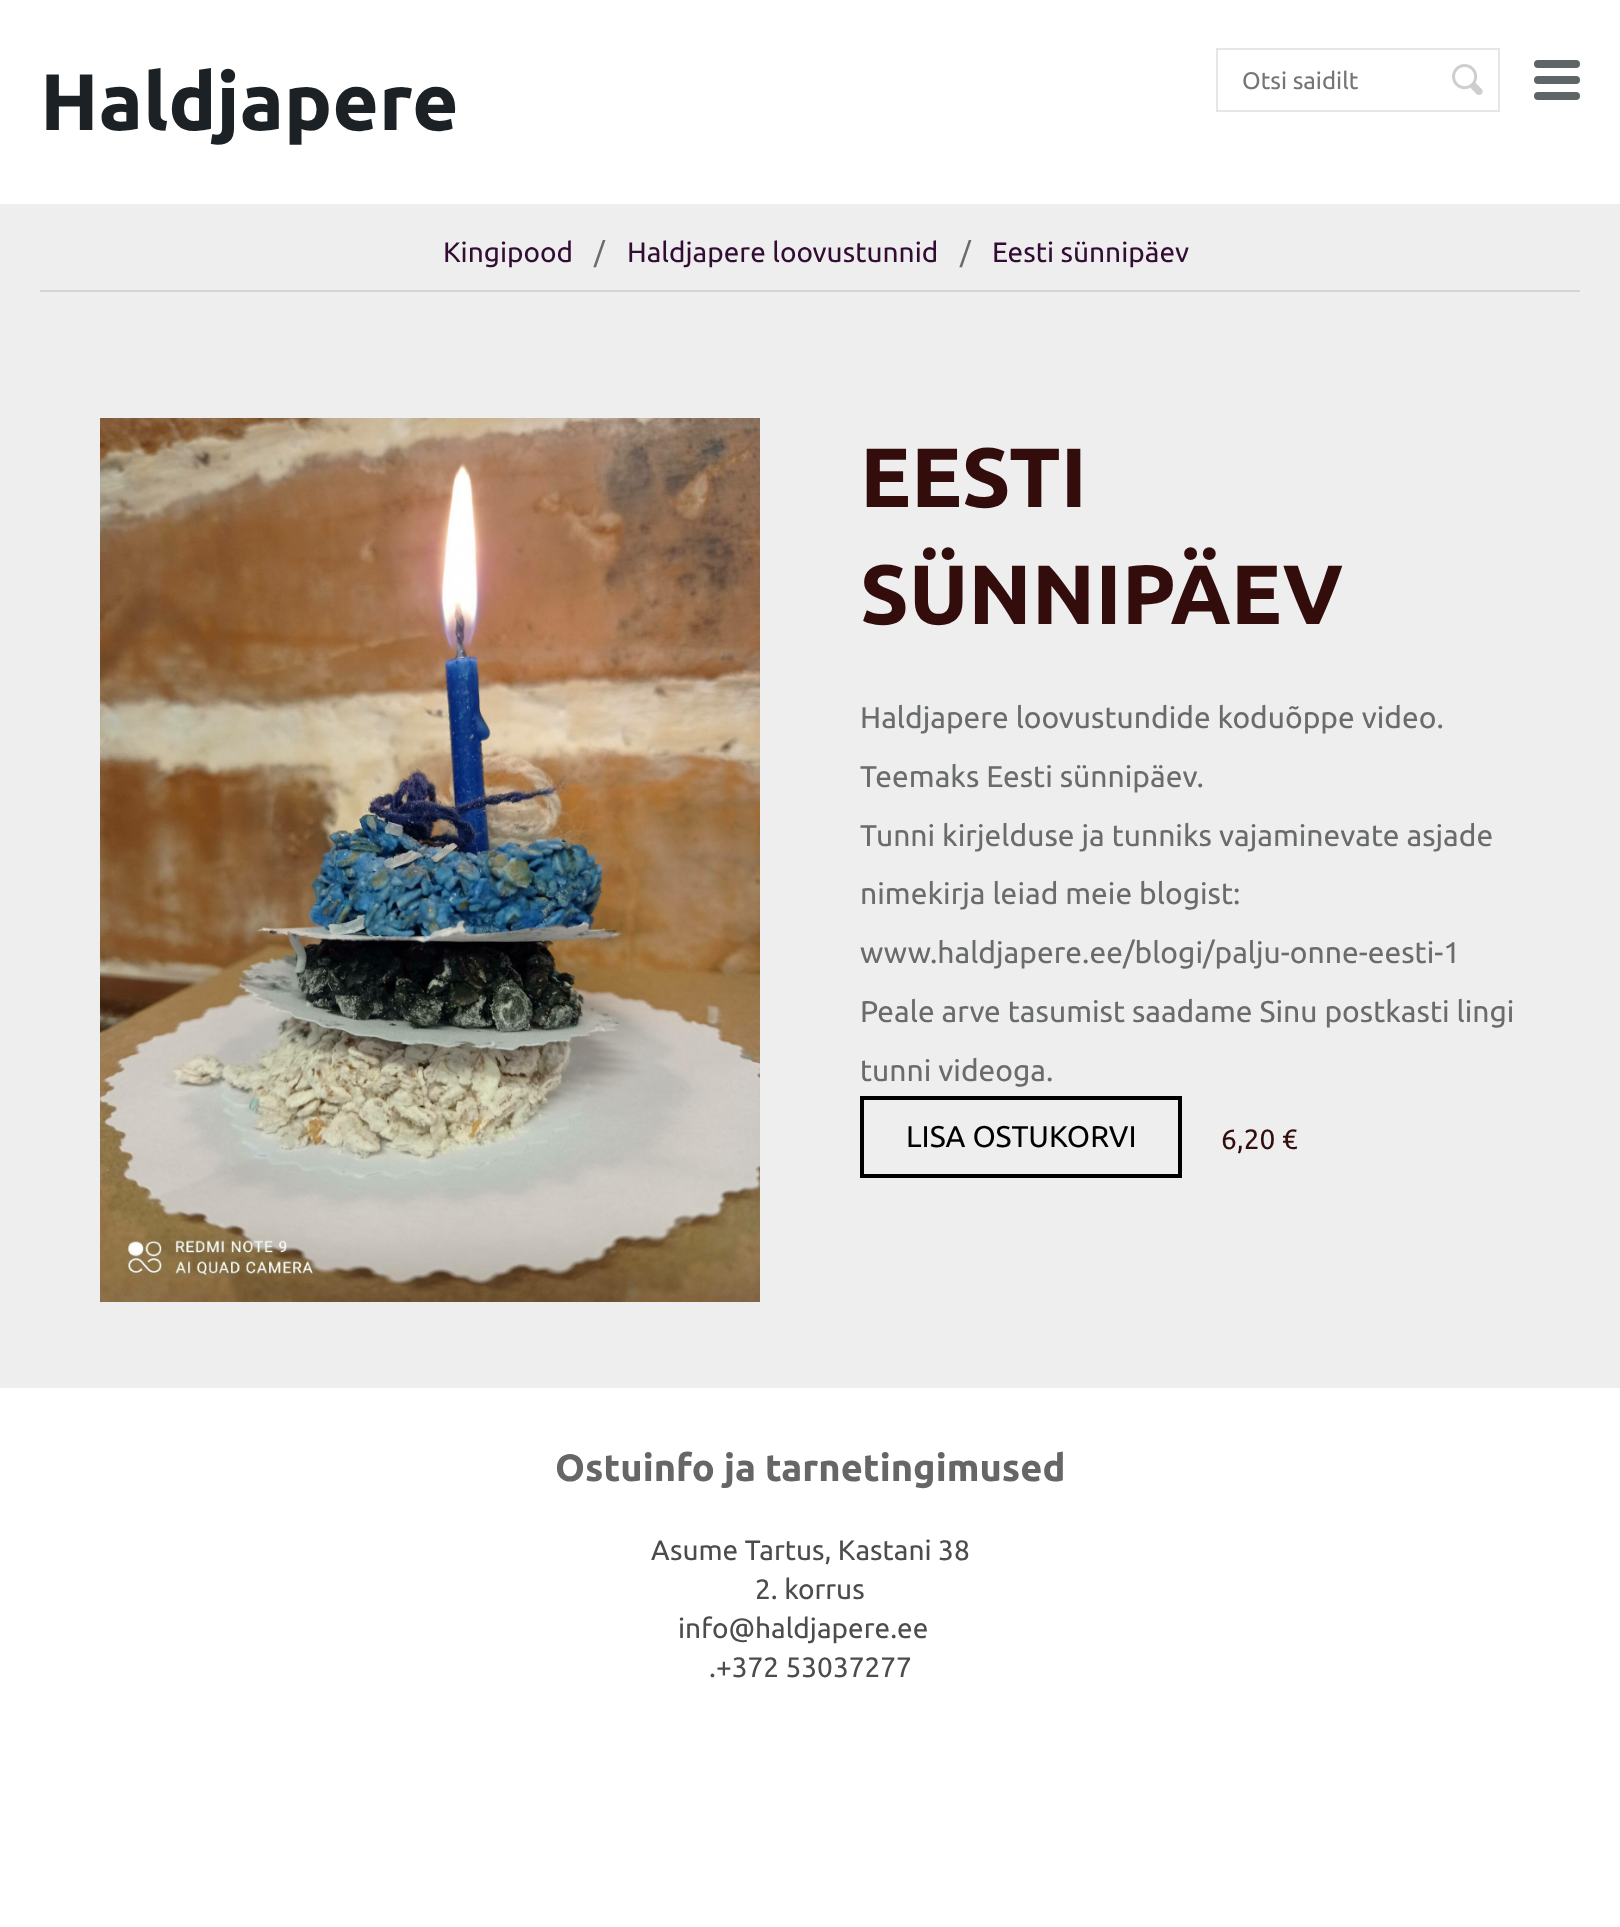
<!DOCTYPE html>
<meta charset="utf-8">
<style>body { margin: 0 } canvas { display: block }</style>
<canvas id="canvas" width="1620" height="1927"></canvas>
<img id="img1" src="img_01.png" hidden>
<img id="img2" src="img_02.png" hidden>
<script>
window.onload = function () {
	const canvas = document.getElementById("canvas");
	const ctx = canvas.getContext("2d");
	ctx.miterLimit = 4;
	ctx.fontKerning = "normal";
	function txt(s, x, y) {
		ctx.fillText(s, x, y);
	}
	function fill(x, y, w, h) {
		ctx.fillRect(x, y, w, h);
	}
	function round(x, y, w, h, r) {
		ctx.beginPath();
		ctx.roundRect(x, y, w, h, r);
		ctx.fill();
	}
	function img(id, x, y, w, h) {
		ctx.drawImage(document.getElementById(id), x, y, w, h);
	}

	ctx.fillStyle = "#FFFFFF";
	fill(0, 0, 1620, 1927);
	ctx.fillStyle = "#5F6466";
	round(1534, 60, 46, 8, 4);
	round(1534, 76, 46, 8, 4);
	round(1534, 92, 46, 8, 4);
	ctx.strokeStyle = "#E6E6E6";
	ctx.lineWidth = 2;
	ctx.strokeRect(1217, 49, 282, 62);
	img("img1", 1452, 64, 31, 31);
	ctx.fillStyle = "#EEEEEE";
	fill(0, 204, 1620, 1184);
	ctx.fillStyle = "#D3D4D4";
	fill(40, 290, 1540, 2);
	img("img2", 100, 418, 660, 884);
	ctx.strokeStyle = "#000000";
	ctx.lineWidth = 4;
	ctx.strokeRect(862, 1098, 318, 78);
	ctx.font = "bold 80px Ubuntu";
	ctx.fillStyle = "#1B2124";
	txt("Haldjapere", 40, 130);
	ctx.font = "24px Ubuntu";
	ctx.fillStyle = "#757575";
	txt("Otsi saidilt", 1242, 89);
	ctx.font = "28px Ubuntu";
	ctx.fillStyle = "#330C33";
	txt("Kingipood", 443, 262);
	ctx.fillStyle = "#696B6C";
	txt("/", 594, 262);
	ctx.fillStyle = "#330C33";
	txt("Haldjapere loovustunnid", 627, 262);
	ctx.fillStyle = "#696B6C";
	txt("/", 960, 262);
	ctx.fillStyle = "#330C33";
	txt("Eesti sünnipäev", 992, 262);
	ctx.font = "bold 84px Ubuntu";
	ctx.fillStyle = "#330C0C";
	txt("EESTI", 860, 507);
	txt("SÜNNIPÄEV", 860, 624);
	ctx.font = "30px Ubuntu";
	ctx.fillStyle = "#696B6C";
	txt("Haldjapere loovustundide koduõppe video.", 860, 728);
	txt("Teemaks Eesti sünnipäev.", 860, 787);
	txt("Tunni kirjelduse ja tunniks vajaminevate asjade", 860, 846);
	txt("nimekirja leiad meie blogist:", 860, 904);
	txt("www.haldjapere.ee/blogi/palju-onne-eesti-1", 860, 963);
	txt("Peale arve tasumist saadame Sinu postkasti lingi", 860, 1022);
	txt("tunni videoga.", 860, 1081);
	ctx.fillStyle = "#000000";
	txt("LISA OSTUKORVI", 906, 1147);
	ctx.font = "28px Ubuntu";
	ctx.fillStyle = "#330C0C";
	txt("6,20 €", 1221, 1149);
	ctx.font = "bold 38px Ubuntu";
	ctx.fillStyle = "#666666";
	txt("Ostuinfo ja tarnetingimused", 555, 1481);
	ctx.font = "28px Ubuntu";
	ctx.fillStyle = "#4C4C4C";
	txt("Asume Tartus, Kastani 38", 651, 1560);
	txt("2. korrus", 755, 1599);
	txt("info@haldjapere.ee", 678, 1638);
	txt(".+372 53037277", 709, 1677);
};
</script>
